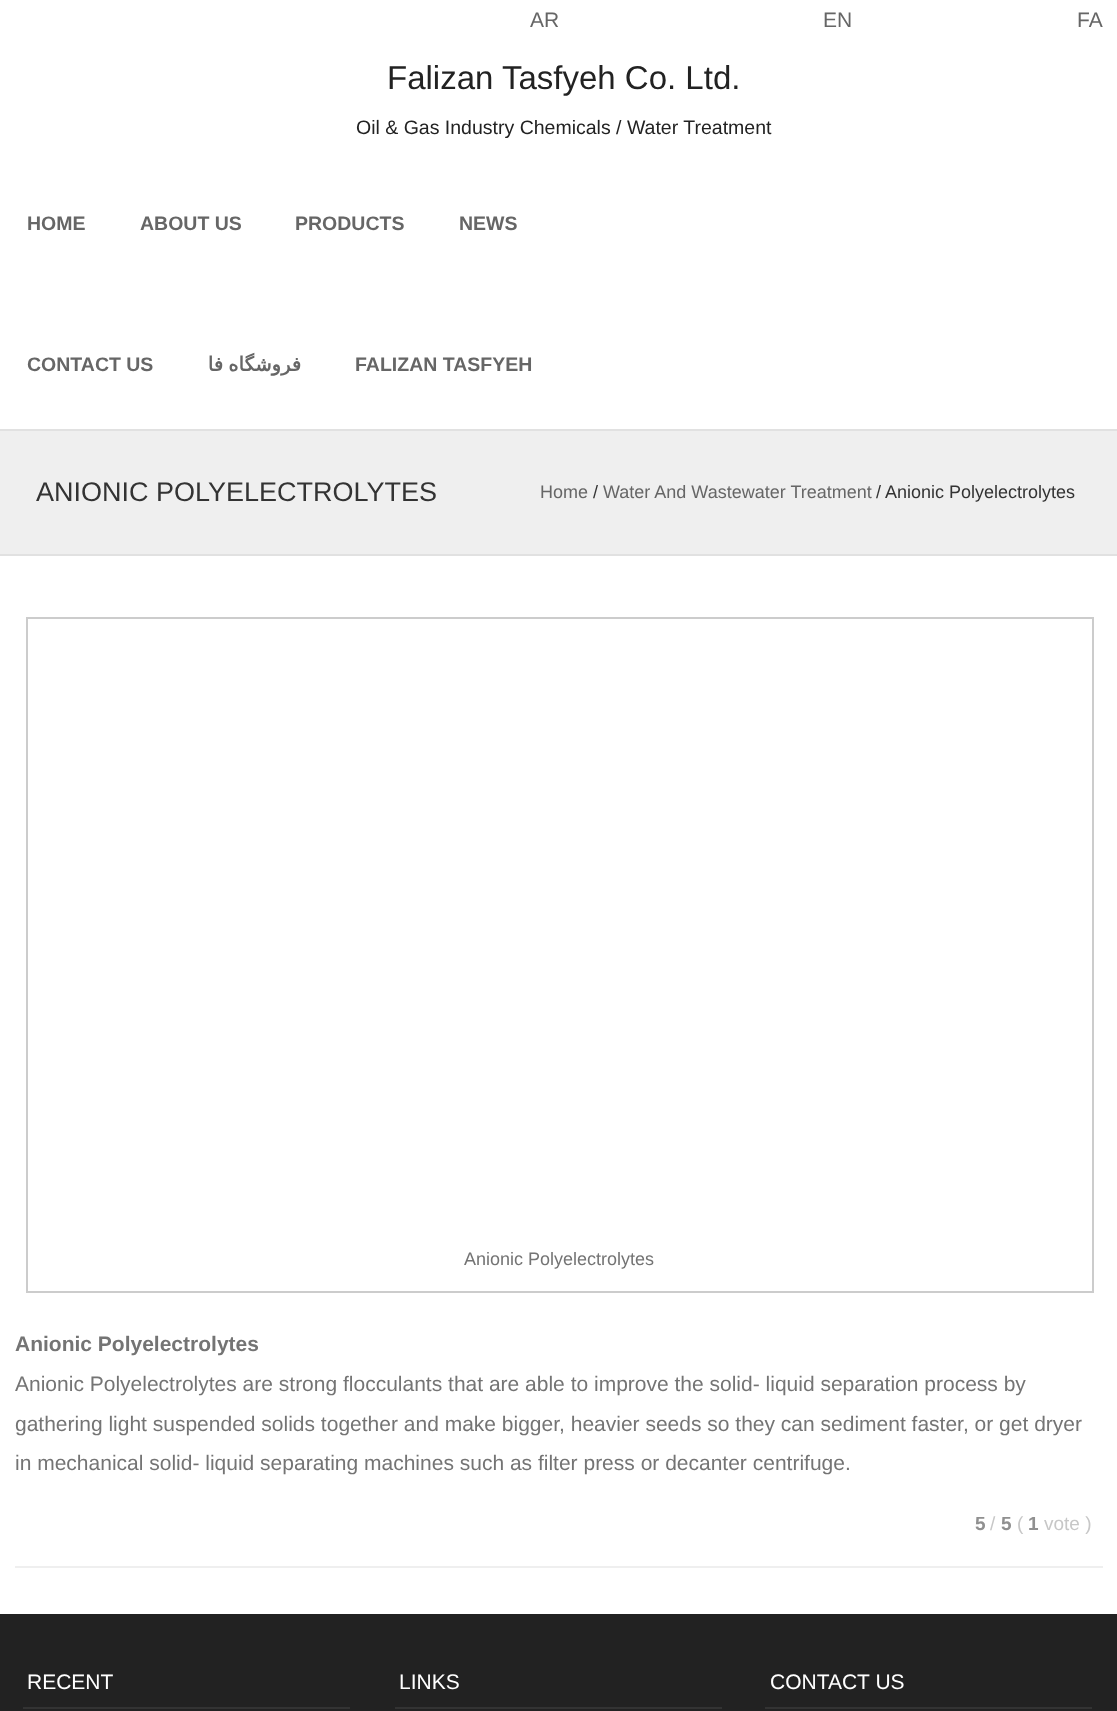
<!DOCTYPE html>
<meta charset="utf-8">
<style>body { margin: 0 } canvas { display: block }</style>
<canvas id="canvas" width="1117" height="1711"></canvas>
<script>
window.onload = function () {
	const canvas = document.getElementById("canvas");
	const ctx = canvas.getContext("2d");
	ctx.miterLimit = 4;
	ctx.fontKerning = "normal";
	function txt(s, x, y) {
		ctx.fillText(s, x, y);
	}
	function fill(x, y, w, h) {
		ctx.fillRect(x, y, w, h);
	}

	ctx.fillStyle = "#FFFFFF";
	fill(0, 0, 1117, 1711);
	ctx.fillStyle = "#EFEFEF";
	fill(0, 431, 1117, 123);
	ctx.fillStyle = "#E1E1E1";
	fill(0, 429, 1117, 2);
	fill(0, 554, 1117, 2);
	ctx.fillStyle = "#EFEFEF";
	fill(15, 1566, 1088, 2);
	ctx.strokeStyle = "#CCCCCC";
	ctx.lineWidth = 2;
	ctx.strokeRect(27, 618, 1066, 674);
	ctx.fillStyle = "#222222";
	fill(0, 1614, 1117, 97);
	ctx.fillStyle = "#333333";
	fill(23, 1707, 327, 2);
	fill(395, 1707, 327, 2);
	fill(765, 1707, 327, 2);
	ctx.font = "21px Liberation Sans";
	ctx.fillStyle = "#666666";
	txt("AR", 530, 27);
	txt("EN", 823, 27);
	txt("FA", 1077, 27);
	ctx.font = "33px Liberation Sans";
	ctx.fillStyle = "#222222";
	txt("Falizan Tasfyeh Co. Ltd.", 387, 89);
	ctx.font = "19.5px Liberation Sans";
	txt("Oil & Gas Industry Chemicals / Water Treatment", 356, 134);
	ctx.font = "bold 19.5px Liberation Sans";
	ctx.fillStyle = "#666666";
	txt("HOME", 27, 230);
	txt("ABOUT US", 140, 230);
	txt("PRODUCTS", 295, 230);
	txt("NEWS", 459, 230);
	txt("CONTACT US", 27, 371);
	ctx.wordSpacing = "-1px";
	ctx.direction = "rtl";
	ctx.font = "bold 19.5px DejaVu Sans";
	txt("فروشگاه فا", 301, 371);
	ctx.wordSpacing = "0px";
	ctx.direction = "ltr";
	ctx.font = "bold 19.5px Liberation Sans";
	txt("FALIZAN TASFYEH", 355, 371);
	ctx.font = "27px Liberation Sans";
	ctx.fillStyle = "#333333";
	txt("ANIONIC POLYELECTROLYTES", 36, 501);
	ctx.font = "18px Liberation Sans";
	ctx.fillStyle = "#666666";
	txt("Home", 540, 498);
	ctx.fillStyle = "#333333";
	txt("/", 593, 498);
	ctx.fillStyle = "#666666";
	txt("Water And Wastewater Treatment", 603, 498);
	ctx.fillStyle = "#333333";
	txt("/", 876, 498);
	txt("Anionic Polyelectrolytes", 885, 498);
	ctx.fillStyle = "#747474";
	txt("Anionic Polyelectrolytes", 464, 1265);
	ctx.font = "bold 21px Liberation Sans";
	txt("Anionic Polyelectrolytes", 15, 1351);
	ctx.font = "21px Liberation Sans";
	txt("Anionic Polyelectrolytes are strong flocculants that are able to improve the solid- liquid separation process by", 15, 1391);
	txt("gathering light suspended solids together and make bigger, heavier seeds so they can sediment faster, or get dryer", 15, 1431);
	txt("in mechanical solid- liquid separating machines such as filter press or decanter centrifuge.", 15, 1470);
	ctx.font = "bold 19px Liberation Sans";
	ctx.fillStyle = "#909090";
	txt("5", 975, 1530);
	ctx.font = "19px Liberation Sans";
	ctx.fillStyle = "#C7C7C7";
	txt("/", 990, 1530);
	ctx.font = "bold 19px Liberation Sans";
	ctx.fillStyle = "#909090";
	txt("5", 1001, 1530);
	ctx.font = "19px Liberation Sans";
	ctx.fillStyle = "#C7C7C7";
	txt("(", 1017, 1530);
	ctx.font = "bold 19px Liberation Sans";
	ctx.fillStyle = "#909090";
	txt("1", 1028, 1530);
	ctx.font = "19px Liberation Sans";
	ctx.fillStyle = "#C7C7C7";
	txt("vote )", 1044, 1530);
	ctx.font = "21px Liberation Sans";
	ctx.fillStyle = "#FFFFFF";
	txt("RECENT", 27, 1689);
	txt("LINKS", 399, 1689);
	txt("CONTACT US", 770, 1689);
};
</script>
